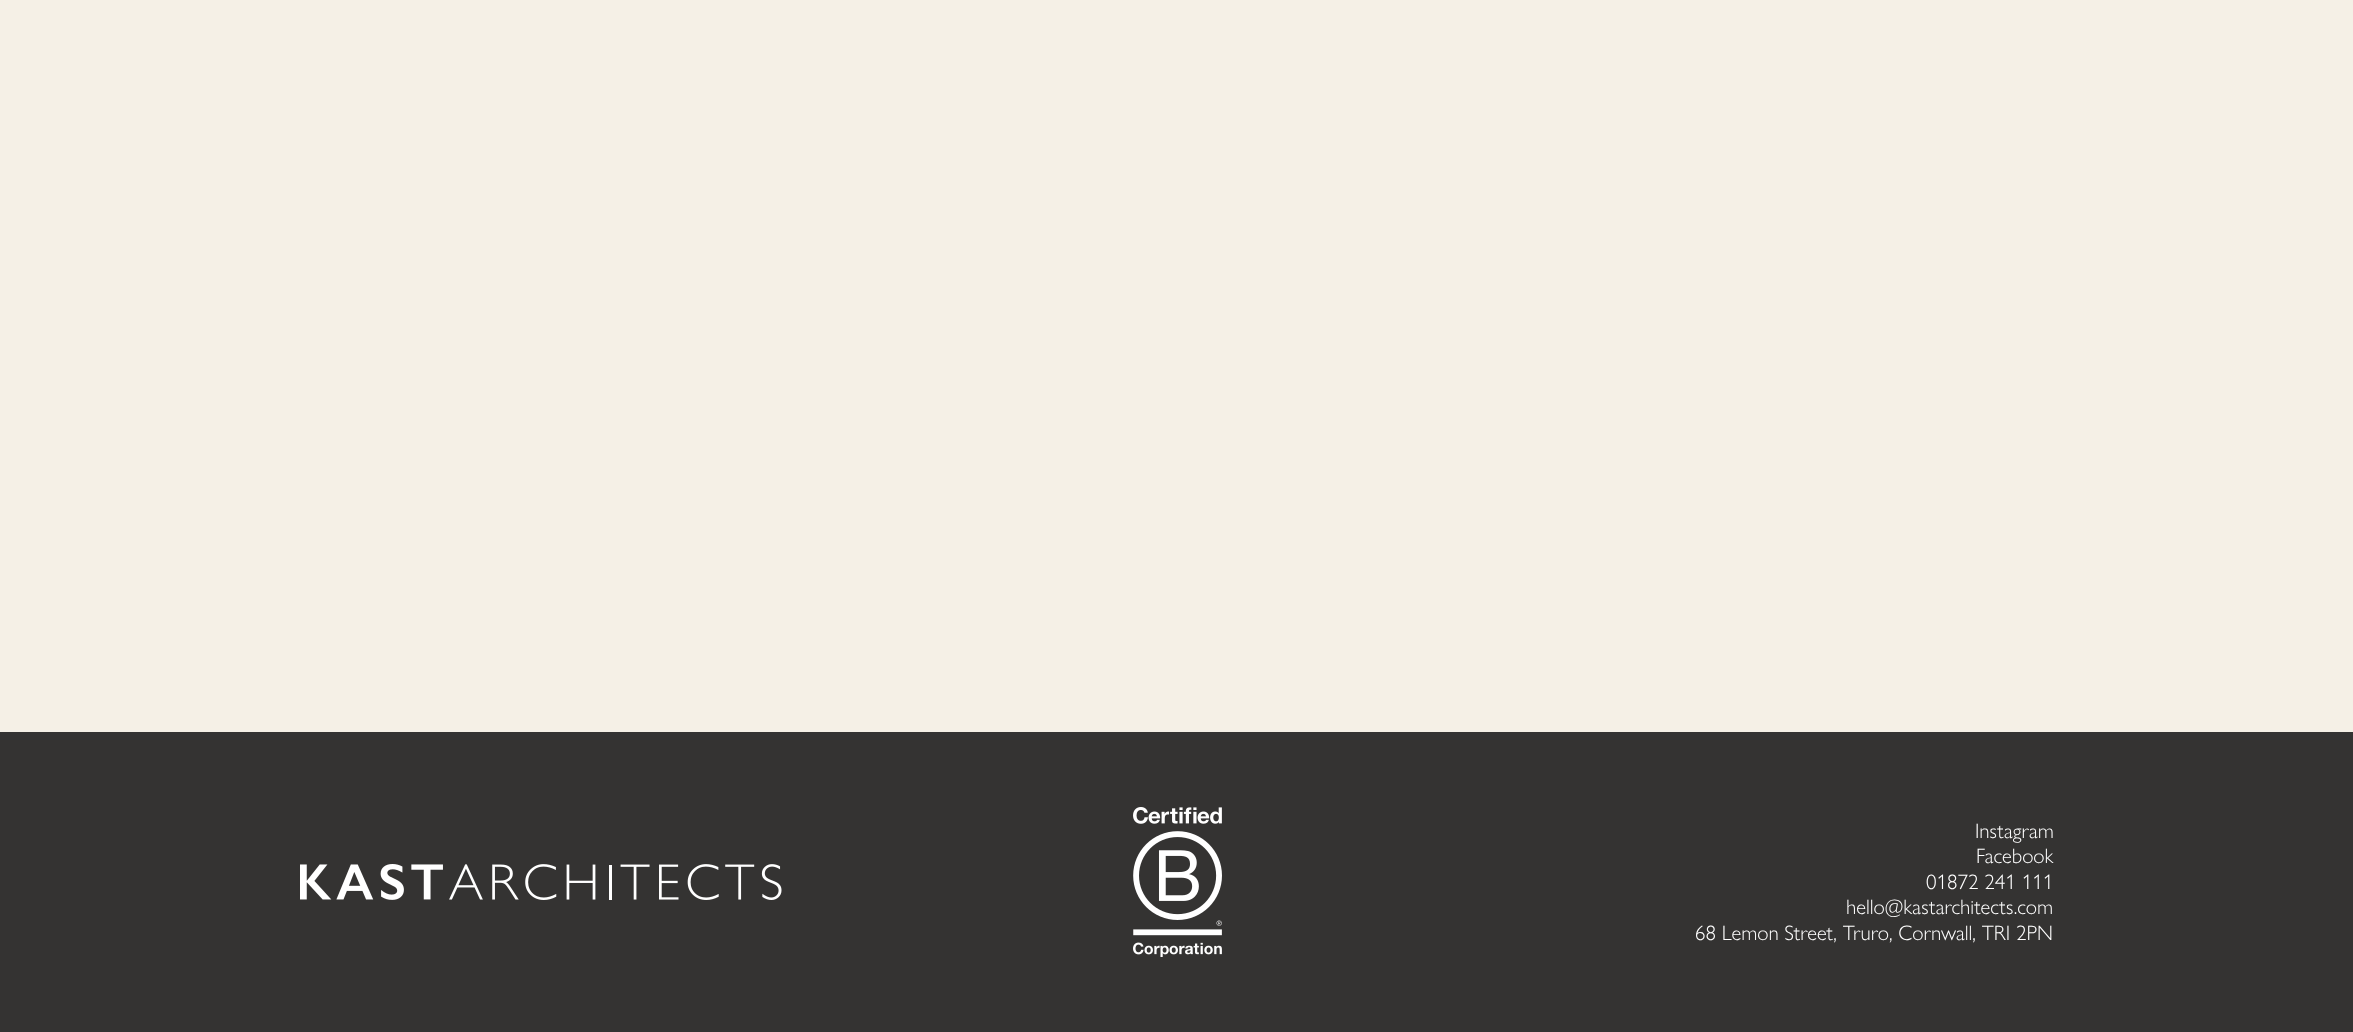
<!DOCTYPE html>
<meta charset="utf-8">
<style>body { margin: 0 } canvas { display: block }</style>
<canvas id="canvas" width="2353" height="1032"></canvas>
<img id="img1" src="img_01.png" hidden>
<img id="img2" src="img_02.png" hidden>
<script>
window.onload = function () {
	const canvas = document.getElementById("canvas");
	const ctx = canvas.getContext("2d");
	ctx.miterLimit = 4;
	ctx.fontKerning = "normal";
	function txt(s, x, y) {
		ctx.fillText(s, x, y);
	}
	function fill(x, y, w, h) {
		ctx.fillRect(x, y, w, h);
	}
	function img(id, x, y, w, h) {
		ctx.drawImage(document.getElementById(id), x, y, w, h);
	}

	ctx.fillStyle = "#F5F0E6";
	fill(0, 0, 2353, 1032);
	ctx.fillStyle = "#343332";
	fill(0, 732, 2353, 300);
	img("img1", 300, 864, 482, 36);
	img("img2", 1133, 807, 89, 150);
	ctx.font = "300 21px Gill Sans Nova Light";
	ctx.fillStyle = "#FFFFFF";
	txt("Instagram", 1975, 838);
	txt("Facebook", 1976, 863);
	txt("01872 241 111", 1926, 889);
	txt("hello@kastarchitects.com", 1846, 914);
	txt("68 Lemon Street, Truro, Cornwall, TRI 2PN", 1695, 940);
};
</script>
